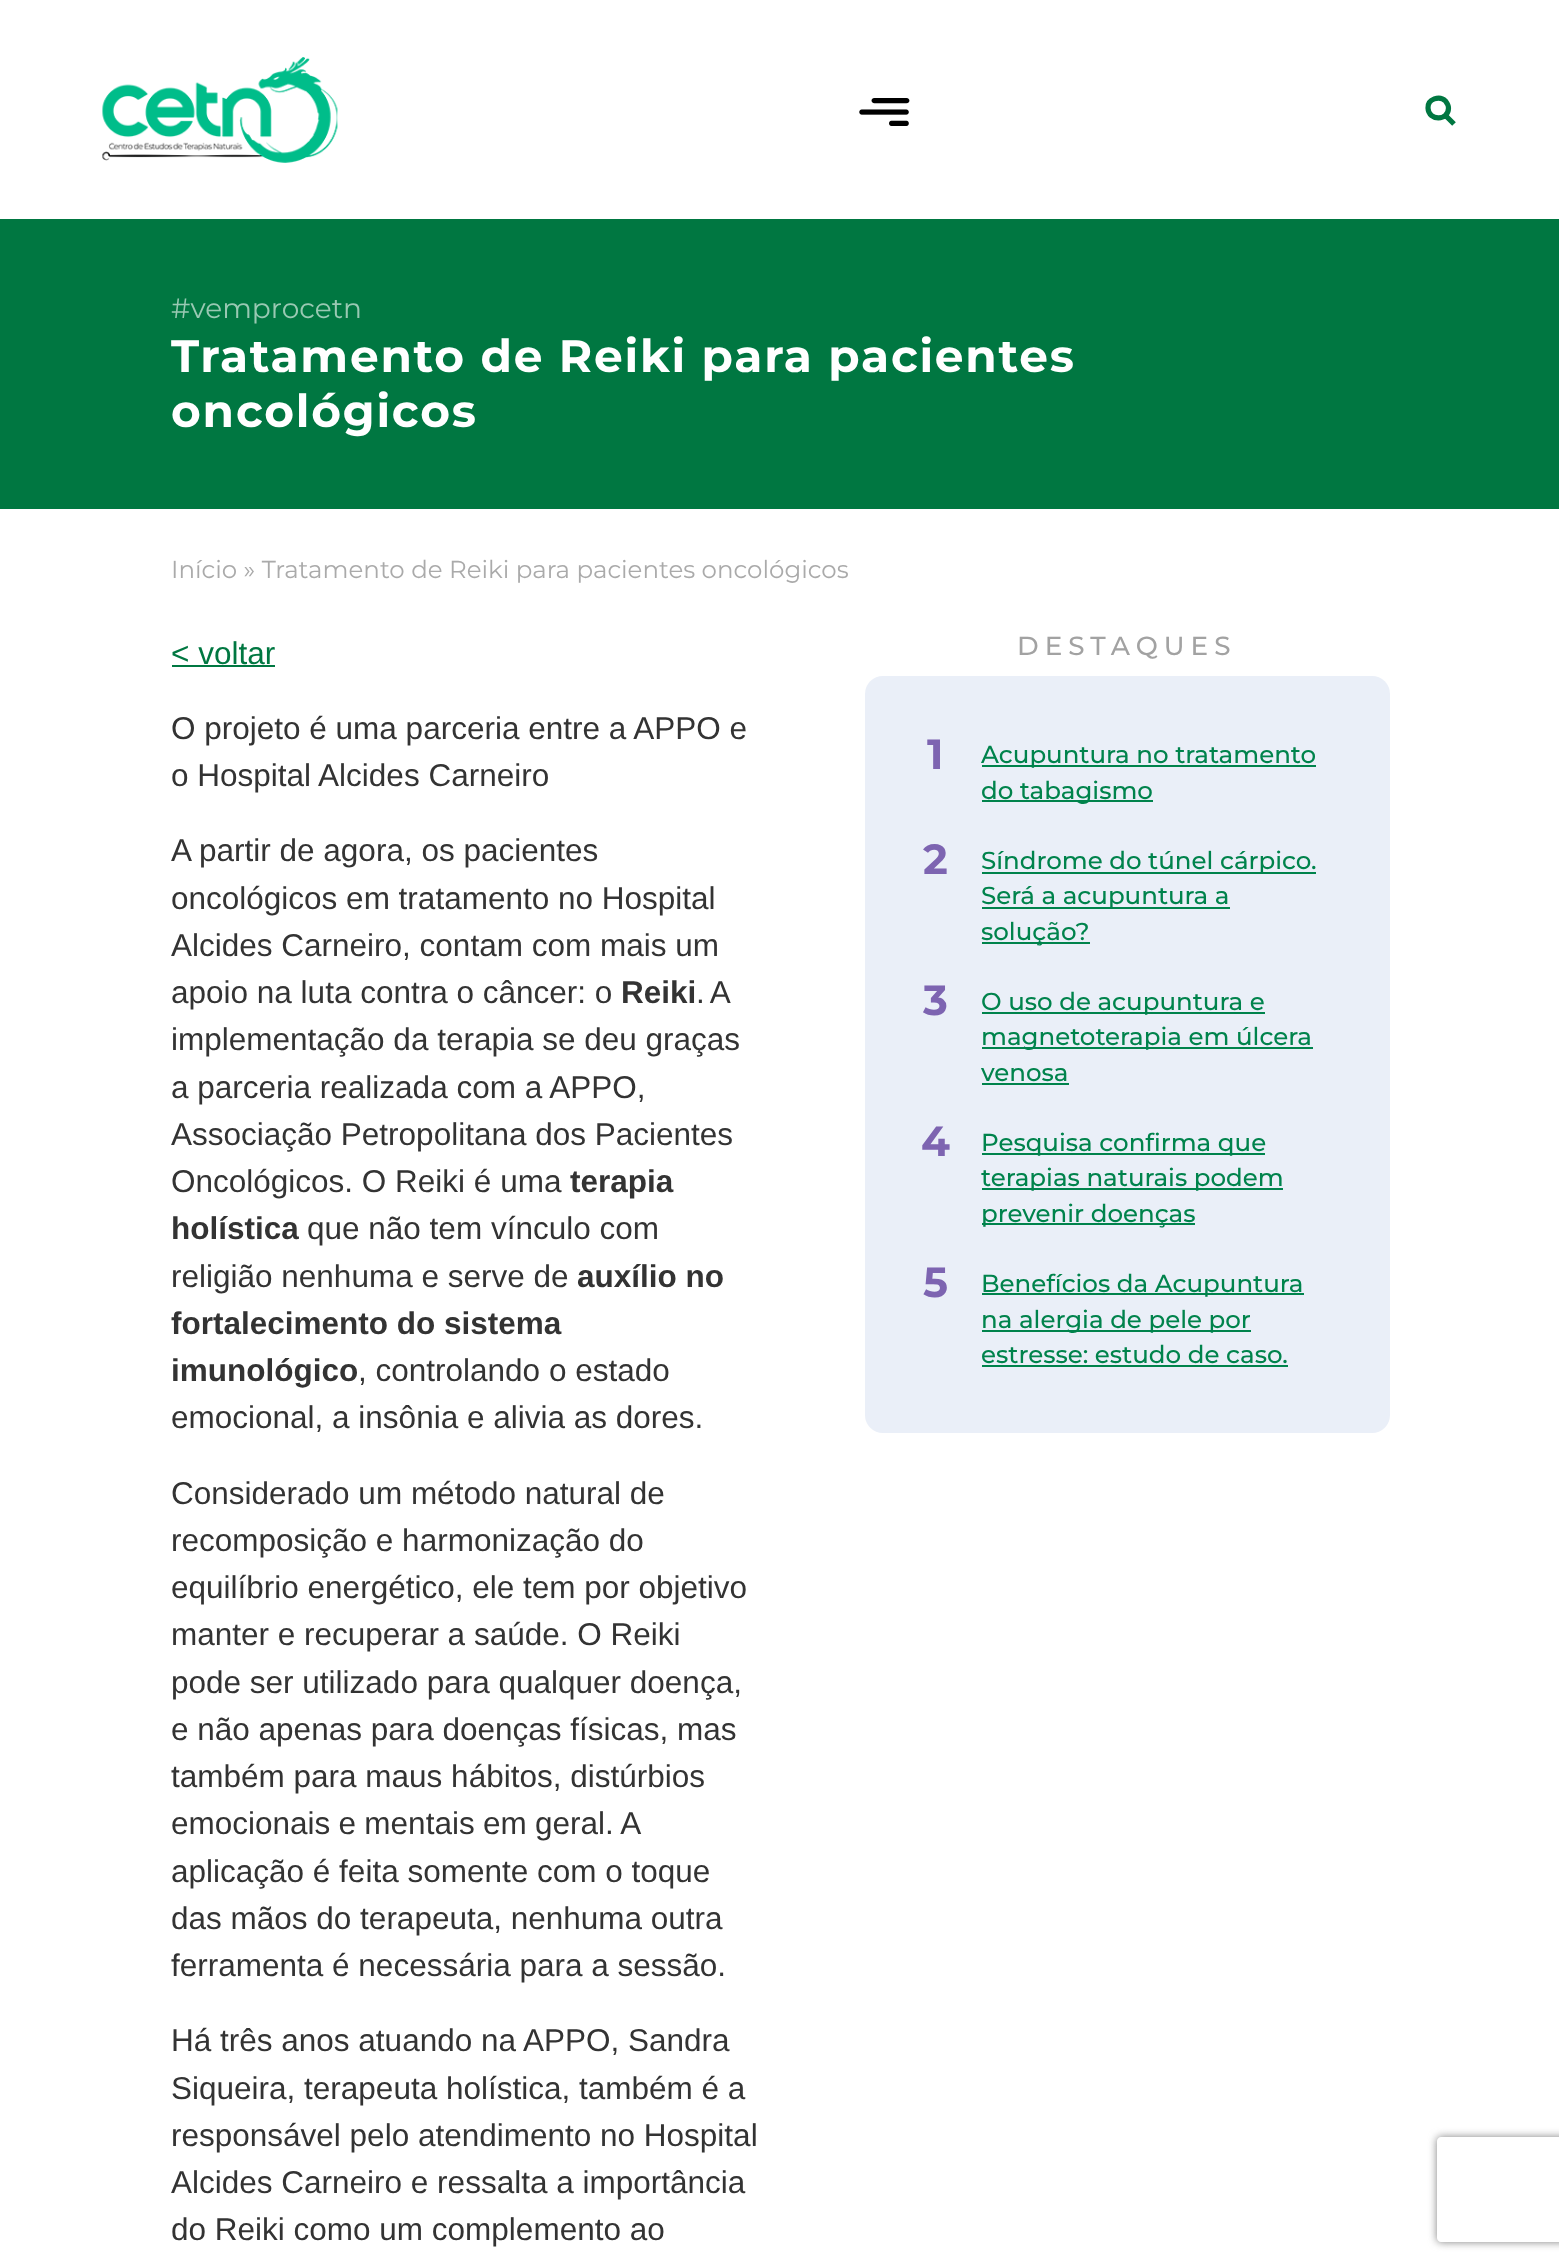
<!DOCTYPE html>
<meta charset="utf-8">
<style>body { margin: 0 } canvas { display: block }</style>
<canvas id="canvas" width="1559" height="2266"></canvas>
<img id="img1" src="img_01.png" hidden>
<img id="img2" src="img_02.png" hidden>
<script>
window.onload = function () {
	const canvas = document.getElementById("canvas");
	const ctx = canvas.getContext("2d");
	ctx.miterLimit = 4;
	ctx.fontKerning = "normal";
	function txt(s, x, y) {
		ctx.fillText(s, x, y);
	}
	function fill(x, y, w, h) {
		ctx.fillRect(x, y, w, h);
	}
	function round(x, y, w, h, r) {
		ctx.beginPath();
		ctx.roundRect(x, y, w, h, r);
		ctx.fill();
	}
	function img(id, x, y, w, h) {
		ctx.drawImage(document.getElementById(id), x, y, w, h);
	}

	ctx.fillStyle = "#FFFFFF";
	fill(0, 0, 1559, 2266);
	img("img1", 102, 57, 236, 106);
	img("img2", 859, 98, 51, 28);
	ctx.beginPath();
	ctx.moveTo(1448.5, 108);
	ctx.bezierCurveTo(1448.5, 121, 1428.5, 121.5, 1428, 108);
	ctx.bezierCurveTo(1427.5, 99, 1439.5, 95, 1445.5, 101);
	ctx.bezierCurveTo(1447, 103, 1448.5, 105.5, 1448.5, 108);
	ctx.closePath();
	ctx.moveTo(1454, 124);
	ctx.lineTo(1447, 117);
	ctx.strokeStyle = "#007741";
	ctx.lineWidth = 5.2;
	ctx.stroke();
	ctx.fillStyle = "#007741";
	fill(0, 219, 1559, 290);
	fill(172, 665, 103, 2);
	ctx.fillStyle = "#EAEFF8";
	round(865, 676, 525, 757, 18);
	ctx.fillStyle = "#00834C";
	fill(982, 765, 334, 2);
	fill(982, 800, 171, 2);
	fill(982, 872, 334, 2);
	fill(982, 907, 248, 2);
	fill(982, 942, 108, 2);
	fill(982, 1012, 283, 2);
	fill(982, 1047, 331, 2);
	fill(982, 1083, 87, 2);
	fill(982, 1153, 283, 2);
	fill(982, 1188, 301, 2);
	fill(982, 1223, 213, 2);
	fill(982, 1293, 322, 2);
	fill(982, 1330, 269, 2);
	fill(982, 1365, 306, 2);
	ctx.save();
	ctx.beginPath();
	ctx.moveTo(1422, 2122);
	ctx.lineTo(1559, 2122);
	ctx.lineTo(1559, 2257);
	ctx.lineTo(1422, 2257);
	ctx.closePath();
	ctx.moveTo(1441, 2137);
	ctx.lineTo(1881, 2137);
	ctx.bezierCurveTo(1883, 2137, 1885, 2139, 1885, 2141);
	ctx.lineTo(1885, 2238);
	ctx.bezierCurveTo(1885, 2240, 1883, 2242, 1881, 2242);
	ctx.lineTo(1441, 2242);
	ctx.bezierCurveTo(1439, 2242, 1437, 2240, 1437, 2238);
	ctx.lineTo(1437, 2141);
	ctx.bezierCurveTo(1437, 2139, 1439, 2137, 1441, 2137);
	ctx.closePath();
	ctx.clip("evenodd");
	ctx.fillStyle = "#808080";
	ctx.filter = "blur(4.5px)";
	ctx.beginPath();
	ctx.roundRect(1437, 2137, 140, 105, 4);
	ctx.fill();
	ctx.filter = "none";
	ctx.restore();
	ctx.font = "28px Montserrat";
	ctx.fillStyle = "#99C9B3";
	txt("#vemprocetn", 171, 318);
	ctx.letterSpacing = "1.75px";
	ctx.font = "bold 45.5px Montserrat";
	ctx.fillStyle = "#FFFFFF";
	txt("Tratamento de Reiki para pacientes", 171, 372);
	txt("oncológicos", 171, 427);
	ctx.letterSpacing = "0px";
	ctx.font = "24.5px Montserrat";
	ctx.fillStyle = "#AAAAAA";
	txt("Início » Tratamento de Reiki para pacientes oncológicos", 171, 578);
	ctx.font = "31.5px Liberation Sans";
	ctx.fillStyle = "#007741";
	txt("< voltar", 171, 664);
	ctx.fillStyle = "#333333";
	txt("O projeto é uma parceria entre a APPO e", 171, 739);
	txt("o Hospital Alcides Carneiro", 171, 786);
	txt("A partir de agora, os pacientes", 171, 861);
	txt("oncológicos em tratamento no Hospital", 171, 909);
	txt("Alcides Carneiro, contam com mais um", 171, 956);
	txt("apoio na luta contra o câncer: o", 171, 1003);
	ctx.font = "bold 31.5px Liberation Sans";
	txt("Reiki", 621, 1003);
	ctx.wordSpacing = "-2px";
	ctx.font = "31.5px Liberation Sans";
	txt(". A", 696, 1003);
	ctx.wordSpacing = "0px";
	txt("implementação da terapia se deu graças", 171, 1050);
	txt("a parceria realizada com a APPO,", 171, 1098);
	txt("Associação Petropolitana dos Pacientes", 171, 1145);
	txt("Oncológicos. O Reiki é uma", 171, 1192);
	ctx.font = "bold 31.5px Liberation Sans";
	txt("terapia", 570, 1192);
	txt("holística", 171, 1239);
	ctx.font = "31.5px Liberation Sans";
	txt("que não tem vínculo com", 307, 1239);
	txt("religião nenhuma e serve de", 171, 1287);
	ctx.font = "bold 31.5px Liberation Sans";
	txt("auxílio no", 577, 1287);
	txt("fortalecimento do sistema", 171, 1334);
	txt("imunológico", 171, 1381);
	ctx.font = "31.5px Liberation Sans";
	txt(", controlando o estado", 358, 1381);
	txt("emocional, a insônia e alivia as dores.", 171, 1428);
	txt("Considerado um método natural de", 171, 1504);
	txt("recomposição e harmonização do", 171, 1551);
	txt("equilíbrio energético, ele tem por objetivo", 171, 1598);
	txt("manter e recuperar a saúde. O Reiki", 171, 1645);
	txt("pode ser utilizado para qualquer doença,", 171, 1693);
	txt("e não apenas para doenças físicas, mas", 171, 1740);
	txt("também para maus hábitos, distúrbios", 171, 1787);
	ctx.wordSpacing = "-0.5px";
	txt("emocionais e mentais em geral. A", 171, 1834);
	ctx.wordSpacing = "0px";
	txt("aplicação é feita somente com o toque", 171, 1882);
	txt("das mãos do terapeuta, nenhuma outra", 171, 1929);
	txt("ferramenta é necessária para a sessão.", 171, 1976);
	txt("Há três anos atuando na APPO, Sandra", 171, 2051);
	txt("Siqueira, terapeuta holística, também é a", 171, 2099);
	txt("responsável pelo atendimento no Hospital", 171, 2146);
	txt("Alcides Carneiro e ressalta a importância", 171, 2193);
	txt("do Reiki como um complemento ao", 171, 2240);
	ctx.letterSpacing = "6px";
	ctx.font = "500 26.25px Montserrat";
	ctx.fillStyle = "#A2A2A2";
	txt("DESTAQUES", 1017, 655);
	ctx.letterSpacing = "0px";
	ctx.font = "bold 42px Montserrat";
	ctx.fillStyle = "#7D64B1";
	txt("1", 927, 769);
	ctx.font = "500 24.5px Montserrat";
	ctx.fillStyle = "#00834C";
	txt("Acupuntura no tratamento", 981, 763);
	txt("do tabagismo", 981, 799);
	ctx.font = "bold 42px Montserrat";
	ctx.fillStyle = "#7D64B1";
	txt("2", 923, 874);
	ctx.font = "500 24.5px Montserrat";
	ctx.fillStyle = "#00834C";
	txt("Síndrome do túnel cárpico.", 981, 869);
	txt("Será a acupuntura a", 981, 904);
	txt("solução?", 981, 940);
	ctx.font = "bold 42px Montserrat";
	ctx.fillStyle = "#7D64B1";
	txt("3", 923, 1015);
	ctx.font = "500 24.5px Montserrat";
	ctx.fillStyle = "#00834C";
	txt("O uso de acupuntura e", 981, 1010);
	txt("magnetoterapia em úlcera", 981, 1045);
	txt("venosa", 981, 1081);
	ctx.font = "bold 42px Montserrat";
	ctx.fillStyle = "#7D64B1";
	txt("4", 921, 1156);
	ctx.font = "500 24.5px Montserrat";
	ctx.fillStyle = "#00834C";
	txt("Pesquisa confirma que", 981, 1151);
	txt("terapias naturais podem", 981, 1186);
	txt("prevenir doenças", 981, 1222);
	ctx.font = "bold 42px Montserrat";
	ctx.fillStyle = "#7D64B1";
	txt("5", 923, 1297);
	ctx.font = "500 24.5px Montserrat";
	ctx.fillStyle = "#00834C";
	txt("Benefícios da Acupuntura", 981, 1292);
	txt("na alergia de pele por", 981, 1328);
	txt("estresse: estudo de caso.", 981, 1363);
};
</script>
